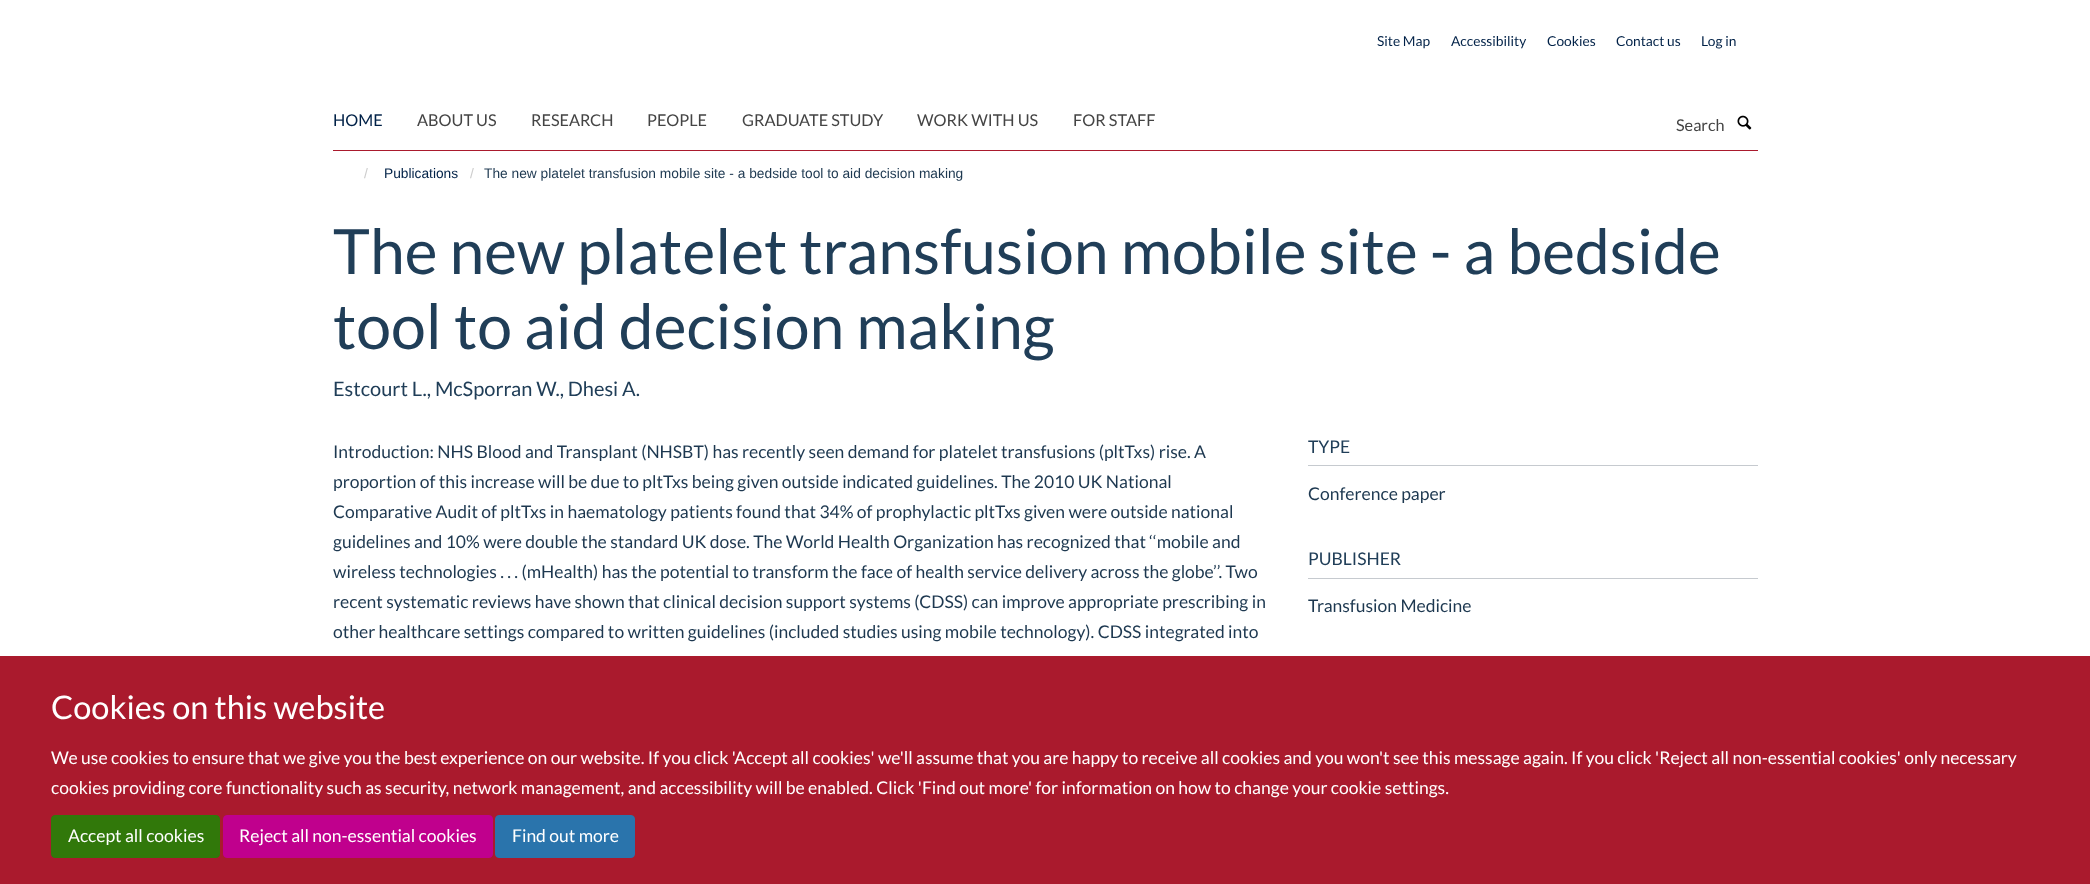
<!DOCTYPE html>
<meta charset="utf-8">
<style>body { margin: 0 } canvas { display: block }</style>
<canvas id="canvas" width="2090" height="884"></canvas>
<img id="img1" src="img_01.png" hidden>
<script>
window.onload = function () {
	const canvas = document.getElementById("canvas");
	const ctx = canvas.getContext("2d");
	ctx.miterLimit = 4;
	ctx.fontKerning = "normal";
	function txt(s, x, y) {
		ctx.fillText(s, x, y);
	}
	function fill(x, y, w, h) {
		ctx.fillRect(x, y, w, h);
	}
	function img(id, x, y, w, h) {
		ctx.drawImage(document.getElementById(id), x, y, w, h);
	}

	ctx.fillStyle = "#FFFFFF";
	fill(0, 0, 2090, 884);
	ctx.fillStyle = "#AA1A2D";
	fill(333, 150, 1425, 1);
	img("img1", 1737, 115, 15, 15);
	ctx.fillStyle = "#C6CACF";
	fill(1308, 465, 450, 1);
	fill(1308, 578, 450, 1);
	ctx.fillStyle = "#AA1A2D";
	fill(0, 656, 2090, 228);
	ctx.fillStyle = "#31780A";
	ctx.beginPath();
	ctx.roundRect(51.5, 815.5, 168, 42, 3.5);
	ctx.fill();
	ctx.strokeStyle = "#31780A";
	ctx.stroke();
	ctx.fillStyle = "#C0008D";
	ctx.beginPath();
	ctx.roundRect(223.5, 815.5, 269, 42, 3.5);
	ctx.fill();
	ctx.strokeStyle = "#C0008D";
	ctx.stroke();
	ctx.fillStyle = "#2A74AC";
	ctx.beginPath();
	ctx.roundRect(495.5, 815.5, 139, 42, 3.5);
	ctx.fill();
	ctx.strokeStyle = "#2A74AC";
	ctx.stroke();
	ctx.font = "13.75px Lato";
	ctx.fillStyle = "#002147";
	txt("Site Map", 1377, 46);
	txt("Accessibility", 1451, 46);
	txt("Cookies", 1547, 46);
	txt("Contact us", 1616, 46);
	txt("Log in", 1701, 46);
	ctx.font = "16.25px Lato";
	txt("HOME", 333, 126);
	ctx.fillStyle = "#444444";
	txt("ABOUT US", 417, 126);
	txt("RESEARCH", 531, 126);
	txt("PEOPLE", 647, 126);
	txt("GRADUATE STUDY", 742, 126);
	txt("WORK WITH US", 917, 126);
	txt("FOR STAFF", 1073, 126);
	txt("Search", 1676, 131);
	ctx.font = "13.75px Liberation Sans";
	ctx.fillStyle = "#CCCCCC";
	txt("/", 364, 178);
	ctx.fillStyle = "#002147";
	txt("Publications", 384, 178);
	ctx.fillStyle = "#CCCCCC";
	txt("/", 470, 178);
	ctx.fillStyle = "#1D3850";
	txt("The new platelet transfusion mobile site - a bedside tool to aid decision making", 484, 178);
	ctx.font = "62.5px Lato";
	ctx.fillStyle = "#203E58";
	txt("The new platelet transfusion mobile site - a bedside", 333, 274);
	txt("tool to aid decision making", 333, 349);
	ctx.font = "20px Lato";
	txt("Estcourt L., McSporran W., Dhesi A.", 333, 396);
	ctx.font = "17.5px Lato";
	ctx.fillStyle = "#1D3850";
	txt("Introduction: NHS Blood and Transplant (NHSBT) has recently seen demand for platelet transfusions (pltTxs) rise. A", 333, 458);
	txt("proportion of this increase will be due to pltTxs being given outside indicated guidelines. The 2010 UK National", 333, 488);
	txt("Comparative Audit of pltTxs in haematology patients found that 34% of prophylactic pltTxs given were outside national", 333, 518);
	txt("guidelines and 10% were double the standard UK dose. The World Health Organization has recognized that ‘‘mobile and", 333, 548);
	txt("wireless technologies . . . (mHealth) has the potential to transform the face of health service delivery across the globe’’. Two", 333, 578);
	txt("recent systematic reviews have shown that clinical decision support systems (CDSS) can improve appropriate prescribing in", 333, 608);
	txt("other healthcare settings compared to written guidelines (included studies using mobile technology). CDSS integrated into", 333, 638);
	ctx.fillStyle = "#203E58";
	txt("TYPE", 1308, 453);
	ctx.fillStyle = "#1D3850";
	txt("Conference paper", 1308, 500);
	ctx.fillStyle = "#203E58";
	txt("PUBLISHER", 1308, 565);
	ctx.fillStyle = "#1D3850";
	txt("Transfusion Medicine", 1308, 612);
	ctx.font = "32.5px Lato";
	ctx.fillStyle = "#FFFFFF";
	txt("Cookies on this website", 51, 719);
	ctx.font = "17.5px Lato";
	txt("We use cookies to ensure that we give you the best experience on our website. If you click 'Accept all cookies' we'll assume that you are happy to receive all cookies and you won't see this message again. If you click 'Reject all non-essential cookies' only necessary", 51, 764);
	txt("cookies providing core functionality such as security, network management, and accessibility will be enabled. Click 'Find out more' for information on how to change your cookie settings.", 51, 794);
	txt("Accept all cookies", 68, 842);
	txt("Reject all non-essential cookies", 239, 842);
	txt("Find out more", 512, 842);
};
</script>
